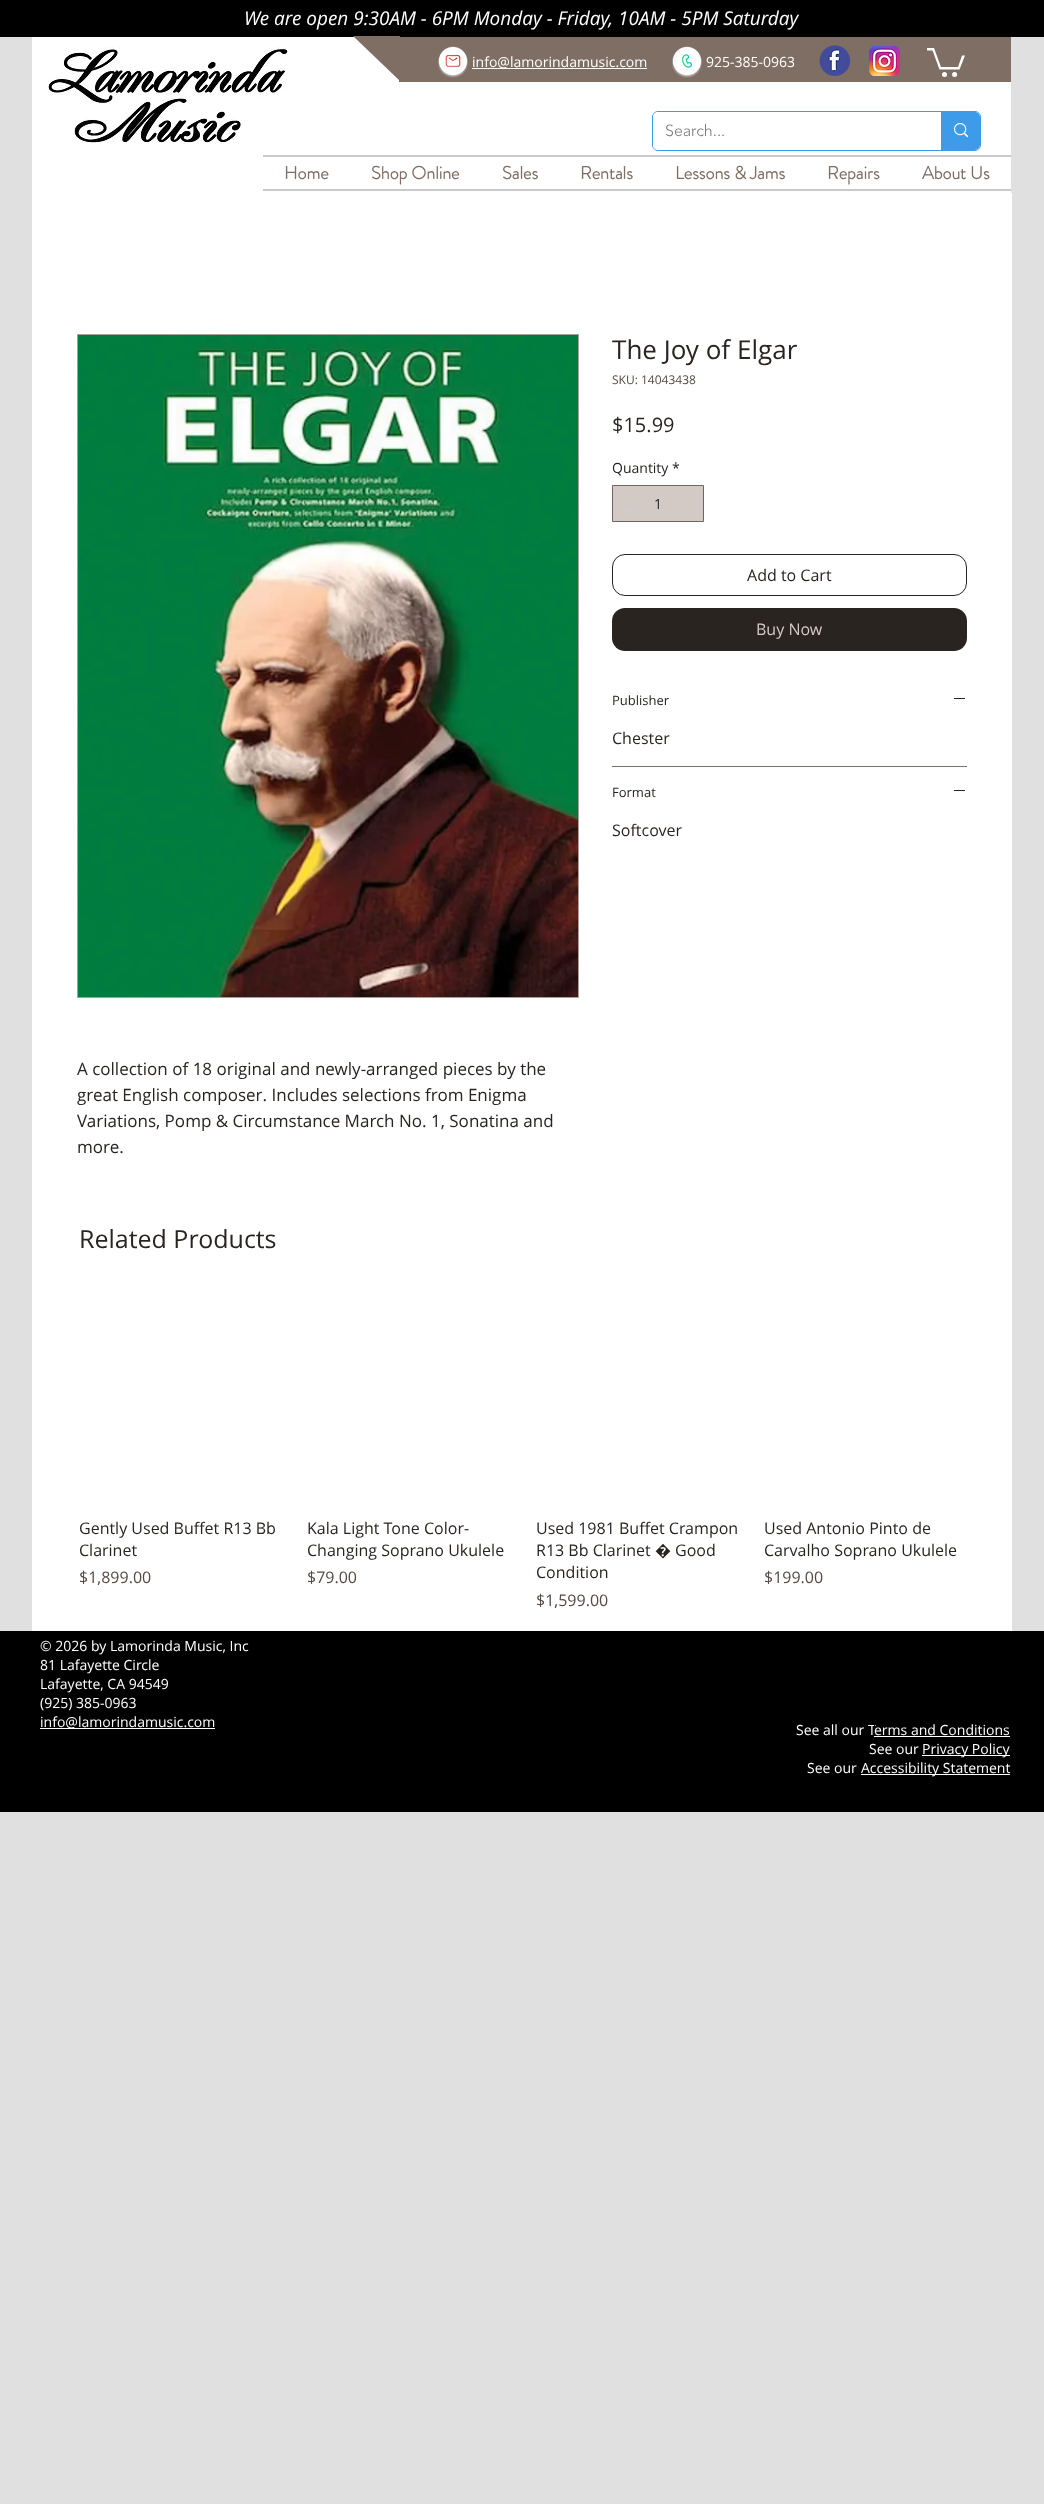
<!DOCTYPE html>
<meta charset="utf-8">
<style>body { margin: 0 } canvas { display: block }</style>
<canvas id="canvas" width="1044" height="2504"></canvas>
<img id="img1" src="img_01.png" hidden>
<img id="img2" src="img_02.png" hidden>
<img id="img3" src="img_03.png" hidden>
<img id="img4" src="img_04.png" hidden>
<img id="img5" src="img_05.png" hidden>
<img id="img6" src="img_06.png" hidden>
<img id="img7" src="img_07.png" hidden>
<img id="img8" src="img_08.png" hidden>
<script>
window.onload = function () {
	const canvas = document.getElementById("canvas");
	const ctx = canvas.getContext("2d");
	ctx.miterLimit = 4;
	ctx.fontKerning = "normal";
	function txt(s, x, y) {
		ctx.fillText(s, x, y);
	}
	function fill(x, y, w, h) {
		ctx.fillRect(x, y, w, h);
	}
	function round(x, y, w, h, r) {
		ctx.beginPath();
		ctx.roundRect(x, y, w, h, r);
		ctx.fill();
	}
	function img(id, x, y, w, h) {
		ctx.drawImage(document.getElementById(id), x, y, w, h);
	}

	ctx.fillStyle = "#E0E0E0";
	fill(0, 0, 1044, 2504);
	ctx.fillStyle = "#000000";
	fill(0, 0, 1044, 37);
	ctx.fillStyle = "#FFFFFF";
	fill(32, 37, 979, 156);
	img("img1", 48, 47, 240, 96);
	ctx.fillStyle = "#7F6E64";
	ctx.beginPath();
	ctx.moveTo(353, 36);
	ctx.lineTo(400, 36);
	ctx.lineTo(400, 81);
	ctx.closePath();
	ctx.fill();
	fill(399, 37, 612, 45);
	img("img2", 437, 46, 32, 32);
	ctx.fillStyle = "#FFFFFF";
	fill(472, 68, 175, 1);
	img("img3", 671, 46, 32, 32);
	img("img4", 819, 45, 32, 31);
	img("img5", 869, 46, 31, 30);
	ctx.beginPath();
	ctx.moveTo(965, 55.5);
	ctx.lineTo(959.5, 69.5);
	ctx.lineTo(939.5, 69.5);
	ctx.lineTo(932.5, 50.5);
	ctx.lineTo(927, 50.5);
	ctx.lineTo(927, 48);
	ctx.lineTo(934, 48);
	ctx.lineTo(941, 67);
	ctx.lineTo(958, 67);
	ctx.lineTo(962, 55.5);
	ctx.fill();
	ctx.beginPath();
	ctx.arc(954.6, 74.4, 2.5, 0, Math.PI * 2);
	ctx.fill();
	ctx.beginPath();
	ctx.arc(944.5, 74.4, 2.5, 0, Math.PI * 2);
	ctx.fill();
	ctx.beginPath();
	ctx.roundRect(652.5, 111.5, 328, 39, 5.5);
	ctx.strokeStyle = "#3D9BE9";
	ctx.stroke();
	round(653, 112, 327, 38, 5);
	ctx.fillStyle = "#3D9BE9";
	ctx.beginPath();
	ctx.roundRect(941, 112, 39, 38, [0, 5, 5, 0]);
	ctx.fill();
	img("img6", 954, 123, 14, 15);
	ctx.fillStyle = "#CACACA";
	fill(263, 155, 748, 2);
	fill(263, 189, 748, 2);
	ctx.fillStyle = "#FFFFFF";
	fill(32, 193, 980, 1438);
	ctx.fillStyle = "#D4CAC5";
	ctx.beginPath();
	ctx.rect(612.5, 485.5, 91, 36);
	ctx.fill();
	ctx.strokeStyle = "#6E6663";
	ctx.stroke();
	ctx.fillStyle = "#CEC9C6";
	fill(624, 504, 13, 1);
	img("img7", 686, 503, 2, 2);
	ctx.beginPath();
	ctx.roundRect(612.5, 554.5, 354, 41, 12.5);
	ctx.strokeStyle = "#2A2421";
	ctx.stroke();
	ctx.fillStyle = "#2A2421";
	round(612, 608, 355, 43, 13);
	ctx.fillStyle = "#7F6E64";
	fill(612, 766, 355, 1);
	ctx.fillStyle = "#2A2421";
	fill(954, 698, 11, 1);
	fill(954, 790, 11, 1);
	ctx.strokeStyle = "#A99E98";
	ctx.strokeRect(77.5, 334.5, 501, 663);
	img("img8", 78, 335, 500, 662);
	ctx.fillStyle = "#000000";
	fill(0, 1631, 1044, 181);
	ctx.fillStyle = "#FFFFFF";
	fill(40, 1728, 175, 1);
	fill(874, 1736, 136, 1);
	fill(922, 1755, 88, 1);
	fill(861, 1774, 149, 1);
	ctx.font = "italic 19px Open Sans";
	txt("We are open 9:30AM - 6PM Monday - Friday, 10AM - 5PM Saturday", 244, 25);
	ctx.font = "14px Open Sans";
	txt("info@lamorindamusic.com", 472, 67);
	txt("925-385-0963", 706, 67);
	ctx.font = "300 16px 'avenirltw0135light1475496'";
	ctx.fillStyle = "#787878";
	txt("Search...", 665, 136);
	ctx.font = "bold 18px 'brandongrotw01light'";
	ctx.fillStyle = "#7F6E64";
	txt("Home", 284, 179);
	txt("Shop Online", 371, 179);
	txt("Sales", 502, 179);
	txt("Rentals", 580, 179);
	txt("Lessons & Jams", 675, 179);
	txt("Repairs", 827, 179);
	txt("About Us", 922, 179);
	ctx.font = "26px Open Sans";
	ctx.fillStyle = "#2A2421";
	txt("The Joy of Elgar", 612, 359);
	ctx.font = "12px Open Sans";
	ctx.fillStyle = "#544943";
	txt("SKU: 14043438", 612, 384);
	ctx.font = "20px Open Sans";
	ctx.fillStyle = "#2A2421";
	txt("$15.99", 612, 432);
	ctx.font = "14px Open Sans";
	txt("Quantity", 612, 473);
	txt("*", 672, 473);
	txt("1", 654, 509);
	ctx.font = "16px Open Sans";
	txt("Add to Cart", 747, 581);
	ctx.fillStyle = "#D4CAC5";
	txt("Buy Now", 756, 635);
	ctx.font = "13px Open Sans";
	ctx.fillStyle = "#2A2421";
	txt("Publisher", 612, 705);
	ctx.font = "16px Open Sans";
	txt("Chester", 612, 744);
	ctx.font = "13px Open Sans";
	txt("Format", 612, 797);
	ctx.font = "16px Open Sans";
	txt("Softcover", 612, 836);
	ctx.font = "17px Open Sans";
	txt("A collection of 18 original and newly-arranged pieces by the", 77, 1075);
	txt("great English composer. Includes selections from Enigma", 77, 1101);
	txt("Variations, Pomp & Circumstance March No. 1, Sonatina and", 77, 1127);
	txt("more.", 77, 1153);
	ctx.font = "25px Open Sans";
	txt("Related Products", 79, 1248);
	ctx.font = "16px Open Sans";
	txt("Gently Used Buffet R13 Bb", 79, 1534);
	txt("Clarinet", 79, 1556);
	ctx.fillStyle = "#544943";
	txt("$1,899.00", 79, 1583);
	ctx.fillStyle = "#2A2421";
	txt("Kala Light Tone Color-", 307, 1534);
	txt("Changing Soprano Ukulele", 307, 1556);
	ctx.fillStyle = "#544943";
	txt("$79.00", 307, 1583);
	ctx.fillStyle = "#2A2421";
	txt("Used 1981 Buffet Crampon", 536, 1534);
	txt("R13 Bb Clarinet � Good", 536, 1556);
	txt("Condition", 536, 1578);
	ctx.fillStyle = "#544943";
	txt("$1,599.00", 536, 1606);
	ctx.fillStyle = "#2A2421";
	txt("Used Antonio Pinto de", 764, 1534);
	txt("Carvalho Soprano Ukulele", 764, 1556);
	ctx.fillStyle = "#544943";
	txt("$199.00", 764, 1583);
	ctx.font = "14px Open Sans";
	ctx.fillStyle = "#FFFFFF";
	txt("© 2026 by Lamorinda Music, Inc", 40, 1651);
	txt("81 Lafayette Circle", 40, 1670);
	txt("Lafayette, CA 94549", 40, 1689);
	txt("(925) 385-0963", 40, 1708);
	txt("info@lamorindamusic.com", 40, 1727);
	txt("See all our T", 796, 1735);
	ctx.fillStyle = "#000000";
	fill(874, 1725, 1, 2);
	ctx.fillStyle = "#FFFFFF";
	txt("erms and Conditions", 874, 1735);
	txt("See our", 869, 1754);
	txt("Privacy Policy", 922, 1754);
	txt("See our", 807, 1773);
	txt("Accessibility Statement", 861, 1773);
};
</script>
